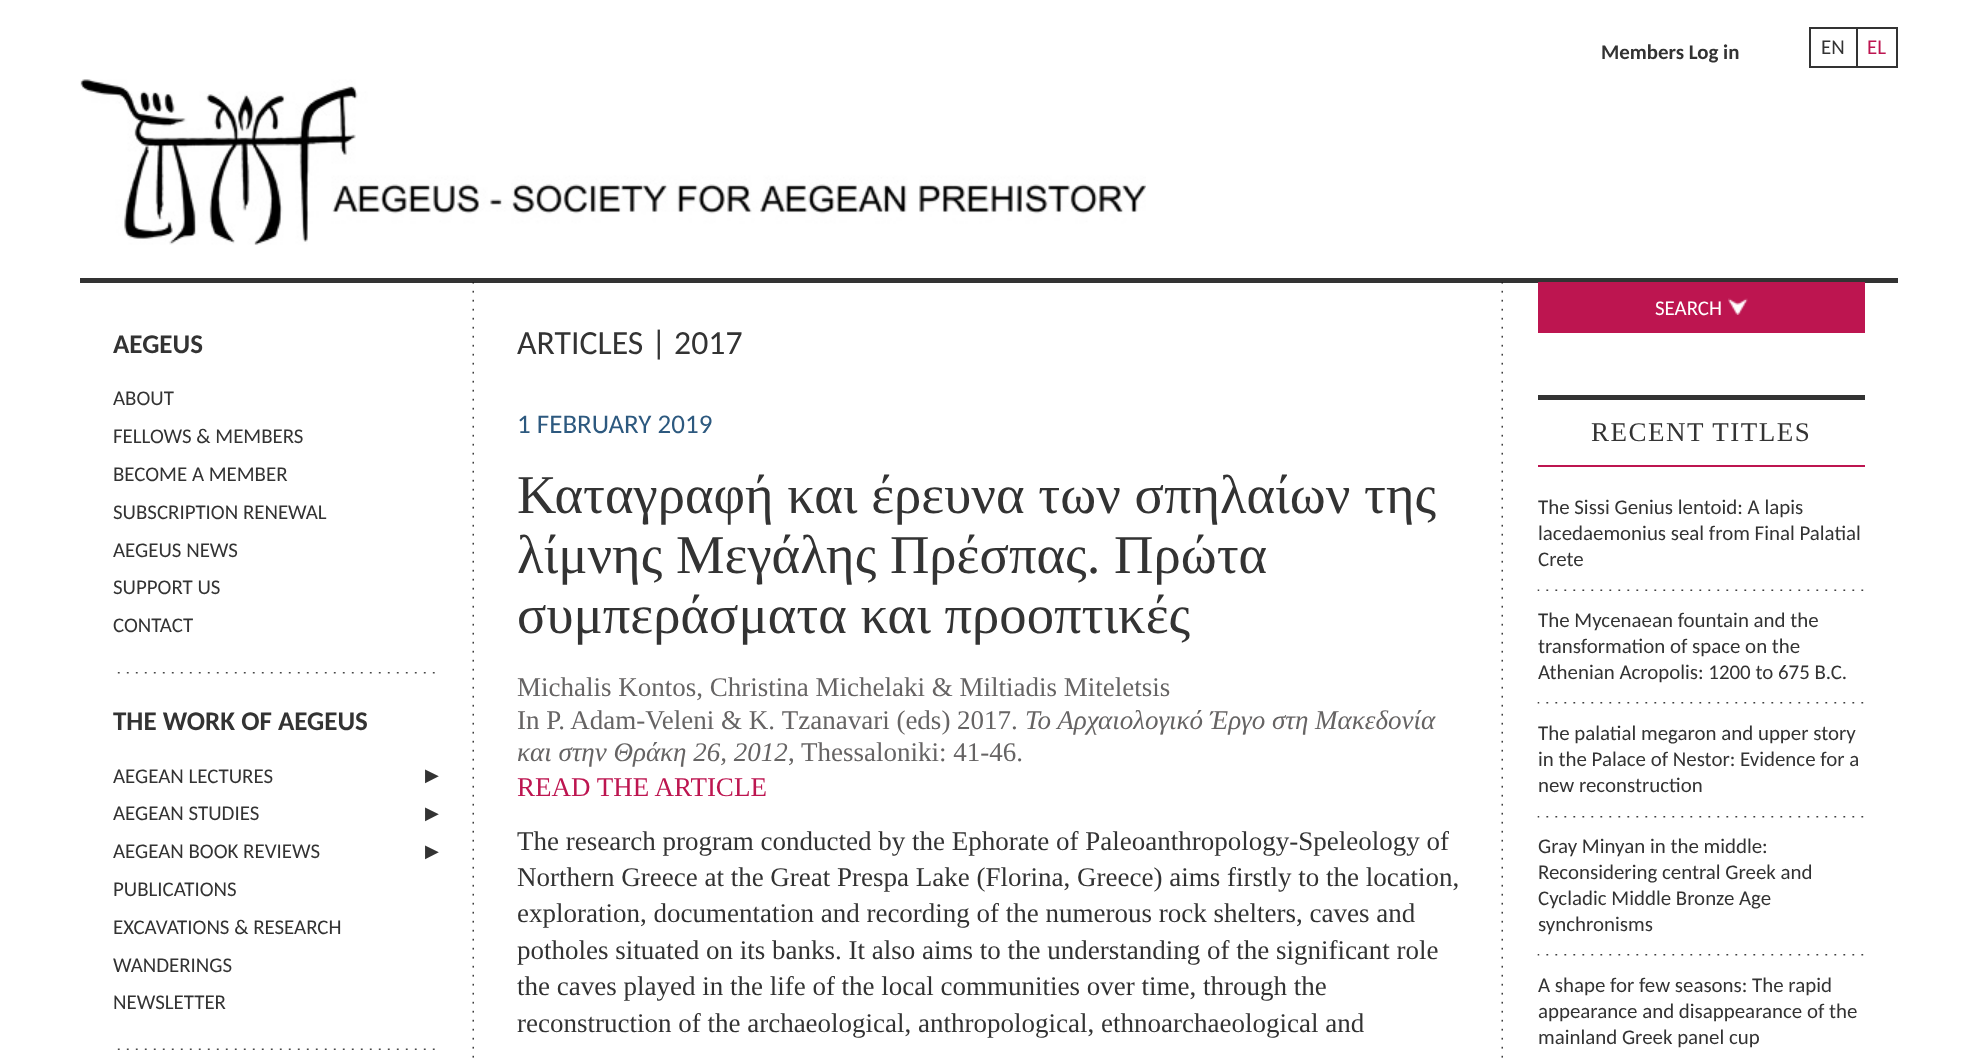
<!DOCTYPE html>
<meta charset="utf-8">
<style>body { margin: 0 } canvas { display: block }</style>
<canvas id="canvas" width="1976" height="1063"></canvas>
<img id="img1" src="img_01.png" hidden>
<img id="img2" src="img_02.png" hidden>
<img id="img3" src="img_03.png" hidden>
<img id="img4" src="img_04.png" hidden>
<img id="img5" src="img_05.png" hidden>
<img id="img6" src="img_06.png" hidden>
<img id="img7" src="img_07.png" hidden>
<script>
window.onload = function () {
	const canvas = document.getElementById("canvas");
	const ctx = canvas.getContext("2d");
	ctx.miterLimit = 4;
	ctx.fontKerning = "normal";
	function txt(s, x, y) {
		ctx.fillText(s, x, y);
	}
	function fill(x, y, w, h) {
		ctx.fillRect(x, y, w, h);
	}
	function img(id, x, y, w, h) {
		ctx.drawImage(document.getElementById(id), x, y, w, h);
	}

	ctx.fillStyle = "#FFFFFF";
	fill(0, 0, 1976, 1063);
	ctx.fillStyle = "#333333";
	fill(80, 278, 1818, 5);
	fill(1809, 27, 47, 2);
	fill(1809, 66, 47, 2);
	fill(1809, 27, 2, 41);
	ctx.strokeStyle = "#333333";
	ctx.lineWidth = 2;
	ctx.strokeRect(1857, 28, 40, 39);
	img("img1", 80, 79, 1066, 166);
	img("img2", 117, 672, 318, 2);
	img("img3", 117, 1048, 318, 2);
	img("img4", 472, 282, 1031, 776);
	ctx.fillStyle = "#BD1550";
	fill(1538, 282, 327, 51);
	img("img5", 1728, 298, 20, 17);
	fill(1538, 465, 327, 2);
	ctx.fillStyle = "#333333";
	fill(1538, 395, 327, 5);
	img("img6", 1537, 589, 327, 2);
	img("img7", 1537, 702, 327, 2);
	img("img7", 1537, 816, 327, 2);
	img("img7", 1537, 954, 327, 2);
	ctx.font = "bold 20.9px Carlito";
	txt("Members Log in", 1601, 59);
	ctx.font = "20.9px Carlito";
	txt("EN", 1821, 54);
	ctx.fillStyle = "#BD1550";
	txt("EL", 1867, 54);
	ctx.font = "bold 27px Carlito";
	ctx.fillStyle = "#333333";
	txt("AEGEUS", 113, 353);
	ctx.font = "20.9px Carlito";
	txt("ABOUT", 113, 405);
	txt("FELLOWS & MEMBERS", 113, 443);
	txt("BECOME A MEMBER", 113, 481);
	txt("SUBSCRIPTION RENEWAL", 113, 519);
	txt("AEGEUS NEWS", 113, 557);
	txt("SUPPORT US", 113, 594);
	txt("CONTACT", 113, 632);
	ctx.font = "bold 27px Carlito";
	txt("THE WORK OF AEGEUS", 113, 730);
	ctx.font = "20.9px Carlito";
	txt("AEGEAN LECTURES", 113, 783);
	ctx.font = "18px DejaVu Sans";
	txt("▶", 425, 781);
	ctx.font = "20.9px Carlito";
	txt("AEGEAN STUDIES", 113, 820);
	ctx.font = "18px DejaVu Sans";
	txt("▶", 425, 819);
	ctx.font = "20.9px Carlito";
	txt("AEGEAN BOOK REVIEWS", 113, 858);
	ctx.font = "18px DejaVu Sans";
	txt("▶", 425, 857);
	ctx.font = "20.9px Carlito";
	txt("PUBLICATIONS", 113, 896);
	txt("EXCAVATIONS & RESEARCH", 113, 934);
	txt("WANDERINGS", 113, 972);
	txt("NEWSLETTER", 113, 1009);
	ctx.font = "33.75px Carlito";
	txt("ARTICLES | 2017", 517, 354);
	ctx.font = "27px Carlito";
	ctx.fillStyle = "#2D597F";
	txt("1 FEBRUARY 2019", 517, 433);
	ctx.font = "54.6px Liberation Serif";
	ctx.fillStyle = "#333333";
	txt("Καταγραφή και έρευνα των σπηλαίων της", 517, 513);
	txt("λίμνης Μεγάλης Πρέσπας. Πρώτα", 517, 573);
	txt("συμπεράσματα και προοπτικές", 517, 633);
	ctx.font = "27px Liberation Serif";
	ctx.fillStyle = "#666464";
	txt("Michalis Kontos, Christina Michelaki & Miltiadis Miteletsis", 517, 696);
	txt("In P. Adam-Veleni & Κ. Tzanavari (eds) 2017.", 517, 729);
	ctx.font = "italic 27px Liberation Serif";
	txt("Το Αρχαιολογικό Έργο στη Μακεδονία", 1025, 729);
	txt("και στην Θράκη 26, 2012", 517, 761);
	ctx.font = "27px Liberation Serif";
	txt(", Thessaloniki: 41-46.", 788, 761);
	ctx.fillStyle = "#BD1550";
	txt("READ THE ARTICLE", 517, 796);
	ctx.fillStyle = "#333333";
	txt("The research program conducted by the Ephorate of Paleoanthropology-Speleology of", 517, 850);
	txt("Northern Greece at the Great Prespa Lake (Florina, Greece) aims firstly to the location,", 517, 886);
	txt("exploration, documentation and recording of the numerous rock shelters, caves and", 517, 922);
	txt("potholes situated on its banks. It also aims to the understanding of the significant role", 517, 959);
	txt("the caves played in the life of the local communities over time, through the", 517, 995);
	txt("reconstruction of the archaeological, anthropological, ethnoarchaeological and", 517, 1032);
	ctx.font = "20.9px Carlito";
	ctx.fillStyle = "#FFFFFF";
	txt("SEARCH", 1655, 315);
	ctx.letterSpacing = "1.5px";
	ctx.font = "27px Liberation Serif";
	ctx.fillStyle = "#333333";
	txt("RECENT TITLES", 1591, 441);
	ctx.letterSpacing = "0px";
	ctx.font = "20.9px Carlito";
	txt("The Sissi Genius lentoid: A lapis", 1538, 514);
	txt("lacedaemonius seal from Final Palatial", 1538, 540);
	txt("Crete", 1538, 566);
	txt("The Mycenaean fountain and the", 1538, 627);
	txt("transformation of space on the", 1538, 653);
	txt("Athenian Acropolis: 1200 to 675 B.C.", 1538, 679);
	txt("The palatial megaron and upper story", 1538, 740);
	txt("in the Palace of Nestor: Evidence for a", 1538, 766);
	txt("new reconstruction", 1538, 792);
	txt("Gray Minyan in the middle:", 1538, 853);
	txt("Reconsidering central Greek and", 1538, 879);
	txt("Cycladic Middle Bronze Age", 1538, 905);
	txt("synchronisms", 1538, 931);
	txt("A shape for few seasons: The rapid", 1538, 992);
	txt("appearance and disappearance of the", 1538, 1018);
	txt("mainland Greek panel cup", 1538, 1044);
};
</script>
